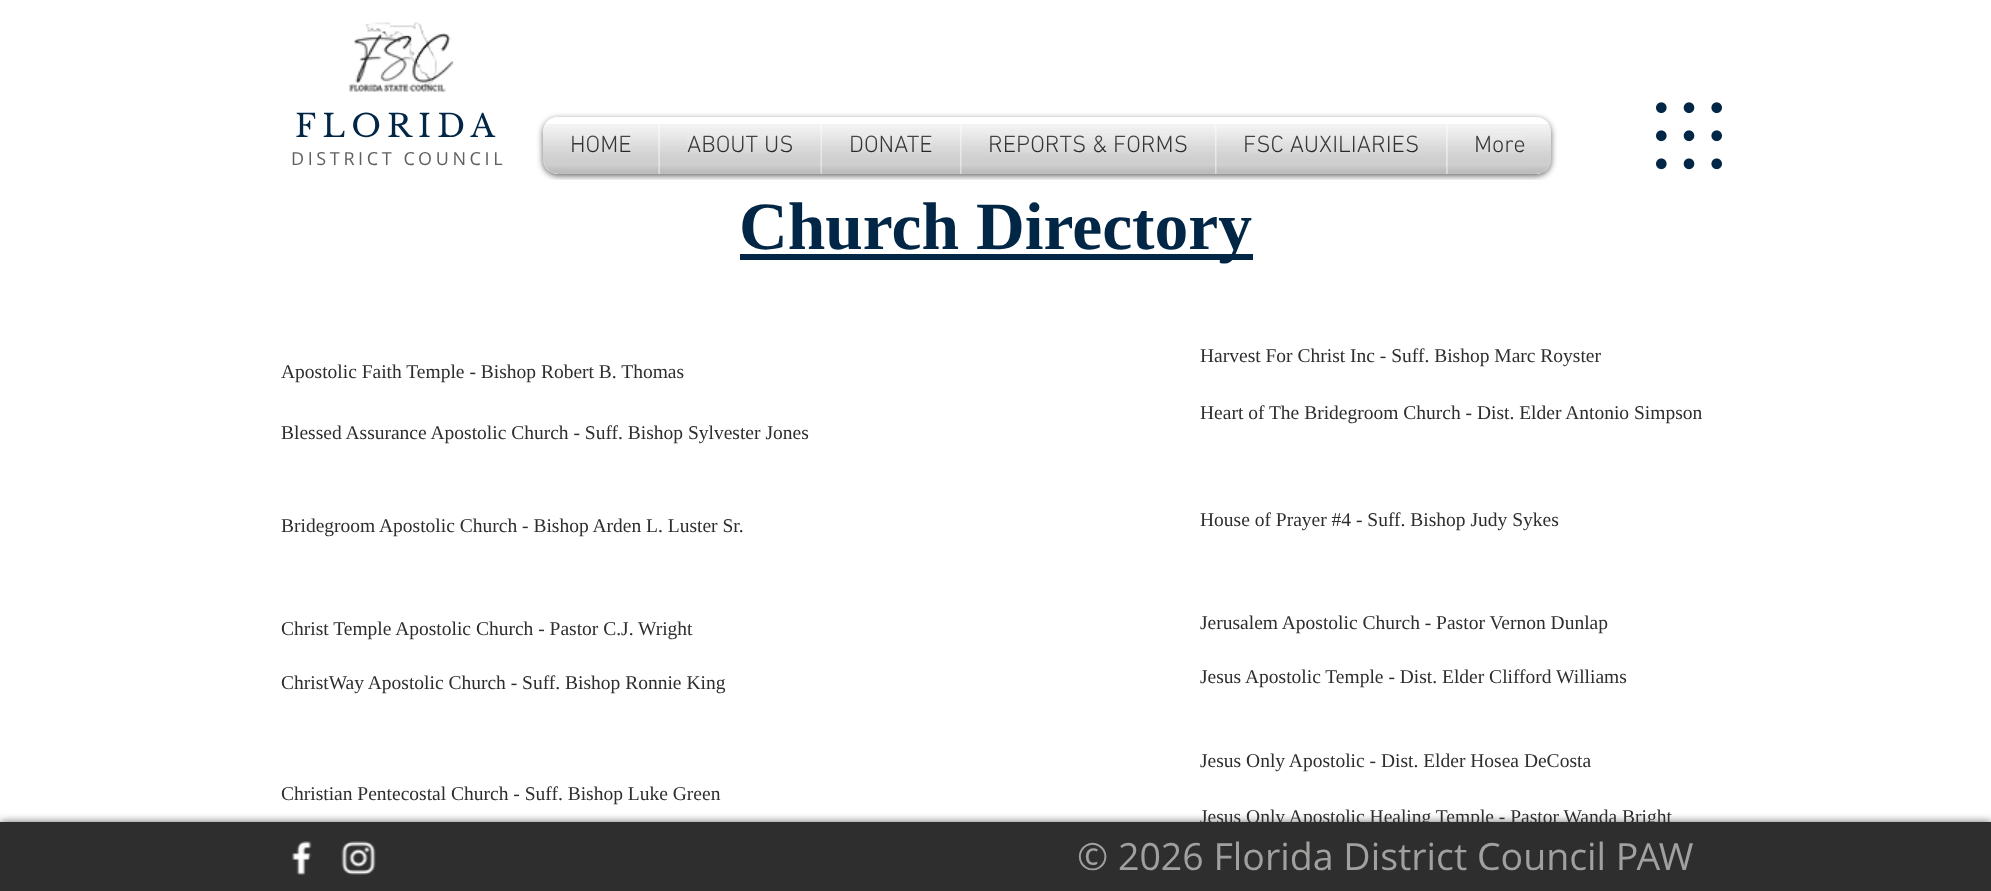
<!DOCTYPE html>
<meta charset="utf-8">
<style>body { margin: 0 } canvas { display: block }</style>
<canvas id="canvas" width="1991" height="891"></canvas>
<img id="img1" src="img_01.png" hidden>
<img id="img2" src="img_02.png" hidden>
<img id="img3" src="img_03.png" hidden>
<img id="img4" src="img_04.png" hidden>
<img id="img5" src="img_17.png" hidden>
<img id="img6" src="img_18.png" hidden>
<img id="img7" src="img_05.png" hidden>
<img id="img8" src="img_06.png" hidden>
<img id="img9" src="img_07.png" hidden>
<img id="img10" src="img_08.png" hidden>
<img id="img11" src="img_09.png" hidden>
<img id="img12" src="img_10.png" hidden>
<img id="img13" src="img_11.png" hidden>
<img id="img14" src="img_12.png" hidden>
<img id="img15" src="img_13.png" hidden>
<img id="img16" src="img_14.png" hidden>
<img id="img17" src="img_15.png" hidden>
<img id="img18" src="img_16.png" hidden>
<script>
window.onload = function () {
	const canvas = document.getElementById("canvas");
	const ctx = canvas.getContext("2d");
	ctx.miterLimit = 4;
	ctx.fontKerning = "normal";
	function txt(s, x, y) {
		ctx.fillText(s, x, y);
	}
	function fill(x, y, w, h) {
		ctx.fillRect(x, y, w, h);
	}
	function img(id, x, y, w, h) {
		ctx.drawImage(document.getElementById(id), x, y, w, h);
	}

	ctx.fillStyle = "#FFFFFF";
	fill(0, 0, 1991, 891);
	img("img1", 349, 22, 105, 70);
	img("img2", 1656, 102, 66, 68);
	ctx.save();
	ctx.beginPath();
	ctx.moveTo(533, 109);
	ctx.lineTo(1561, 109);
	ctx.lineTo(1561, 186);
	ctx.lineTo(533, 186);
	ctx.closePath();
	ctx.moveTo(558, 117);
	ctx.lineTo(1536, 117);
	ctx.bezierCurveTo(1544.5, 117, 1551, 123.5, 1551, 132);
	ctx.lineTo(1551, 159);
	ctx.bezierCurveTo(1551, 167.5, 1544.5, 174, 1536, 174);
	ctx.lineTo(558, 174);
	ctx.bezierCurveTo(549.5, 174, 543, 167.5, 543, 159);
	ctx.lineTo(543, 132);
	ctx.bezierCurveTo(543, 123.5, 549.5, 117, 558, 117);
	ctx.closePath();
	ctx.clip("evenodd");
	ctx.fillStyle = "rgba(0, 0, 0, 0.6)";
	ctx.filter = "blur(3px)";
	ctx.beginPath();
	ctx.roundRect(543, 119, 1008, 57, 15);
	ctx.fill();
	ctx.filter = "none";
	ctx.restore();
	img("img3", 543, 117, 1008, 12);
	img("img4", 543, 124, 1008, 50);
	fill(550, 180, 994, 2);
	ctx.fillStyle = "#012646";
	fill(740, 254, 513, 6);
	ctx.fillStyle = "rgba(47, 46, 46, 0.72)";
	ctx.filter = "blur(4px)";
	ctx.beginPath();
	ctx.rect(0, 822, 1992, 69);
	ctx.fill();
	ctx.filter = "none";
	ctx.fillStyle = "#2F2E2E";
	fill(0, 822, 1991, 69);
	img("img5", 291, 841, 21, 34);
	img("img6", 341, 841, 35, 34);
	ctx.letterSpacing = "6.25px";
	ctx.font = "31.5px Libre Baskerville";
	ctx.fillStyle = "#012646";
	txt("FLORIDA", 295, 137);
	ctx.letterSpacing = "0px";
	ctx.font = "300 24px 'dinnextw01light'";
	ctx.fillStyle = "#000000";
	txt("HOME", 570, 152);
	img("img7", 572, 135, 59, 18);
	img("img8", 543, 124, 116, 50);
	txt("ABOUT US", 687, 152);
	img("img9", 687, 135, 105, 18);
	img("img10", 660, 124, 161, 50);
	txt("DONATE", 849, 152);
	img("img11", 851, 135, 81, 18);
	img("img12", 822, 124, 138, 50);
	txt("REPORTS & FORMS", 988, 152);
	img("img13", 990, 135, 197, 18);
	img("img14", 961, 124, 254, 50);
	txt("FSC AUXILIARIES", 1243, 152);
	img("img15", 1245, 135, 173, 18);
	img("img16", 1216, 124, 230, 50);
	txt("More", 1474, 152);
	img("img17", 1475, 135, 49, 18);
	img("img18", 1447, 124, 104, 50);
	ctx.letterSpacing = "3.6px";
	ctx.font = "18px Open Sans";
	ctx.fillStyle = "#605E5E";
	txt("DISTRICT COUNCIL", 291, 165);
	ctx.letterSpacing = "0px";
	ctx.font = "bold 67.5px Liberation Serif";
	ctx.fillStyle = "#012646";
	txt("Church Directory", 739, 249);
	ctx.font = "19.5px Liberation Serif";
	ctx.fillStyle = "#2F2E2E";
	txt("Harvest For Christ Inc - Suff. Bishop Marc Royster", 1200, 362);
	txt("Apostolic Faith Temple - Bishop Robert B. Thomas", 281, 378);
	txt("Heart of The Bridegroom Church - Dist. Elder Antonio Simpson", 1200, 419);
	txt("Blessed Assurance Apostolic Church - Suff. Bishop Sylvester Jones", 281, 439);
	txt("Bridegroom Apostolic Church - Bishop Arden L. Luster Sr.", 281, 532);
	txt("House of Prayer #4 - Suff. Bishop Judy Sykes", 1200, 526);
	txt("Christ Temple Apostolic Church - Pastor C.J. Wright", 281, 635);
	txt("Jerusalem Apostolic Church - Pastor Vernon Dunlap", 1200, 629);
	txt("ChristWay Apostolic Church - Suff. Bishop Ronnie King", 281, 689);
	txt("Jesus Apostolic Temple - Dist. Elder Clifford Williams", 1200, 683);
	txt("Jesus Only Apostolic - Dist. Elder Hosea DeCosta", 1200, 767);
	txt("Christian Pentecostal Church - Suff. Bishop Luke Green", 281, 800);
	txt("Jesus Only Apostolic Healing Temple - Pastor Wanda Bright", 1200, 823);
	ctx.font = "37.5px Open Sans";
	ctx.fillStyle = "#A0A09F";
	txt("© 2026 Florida District Council PAW", 1077, 870);
};
</script>
